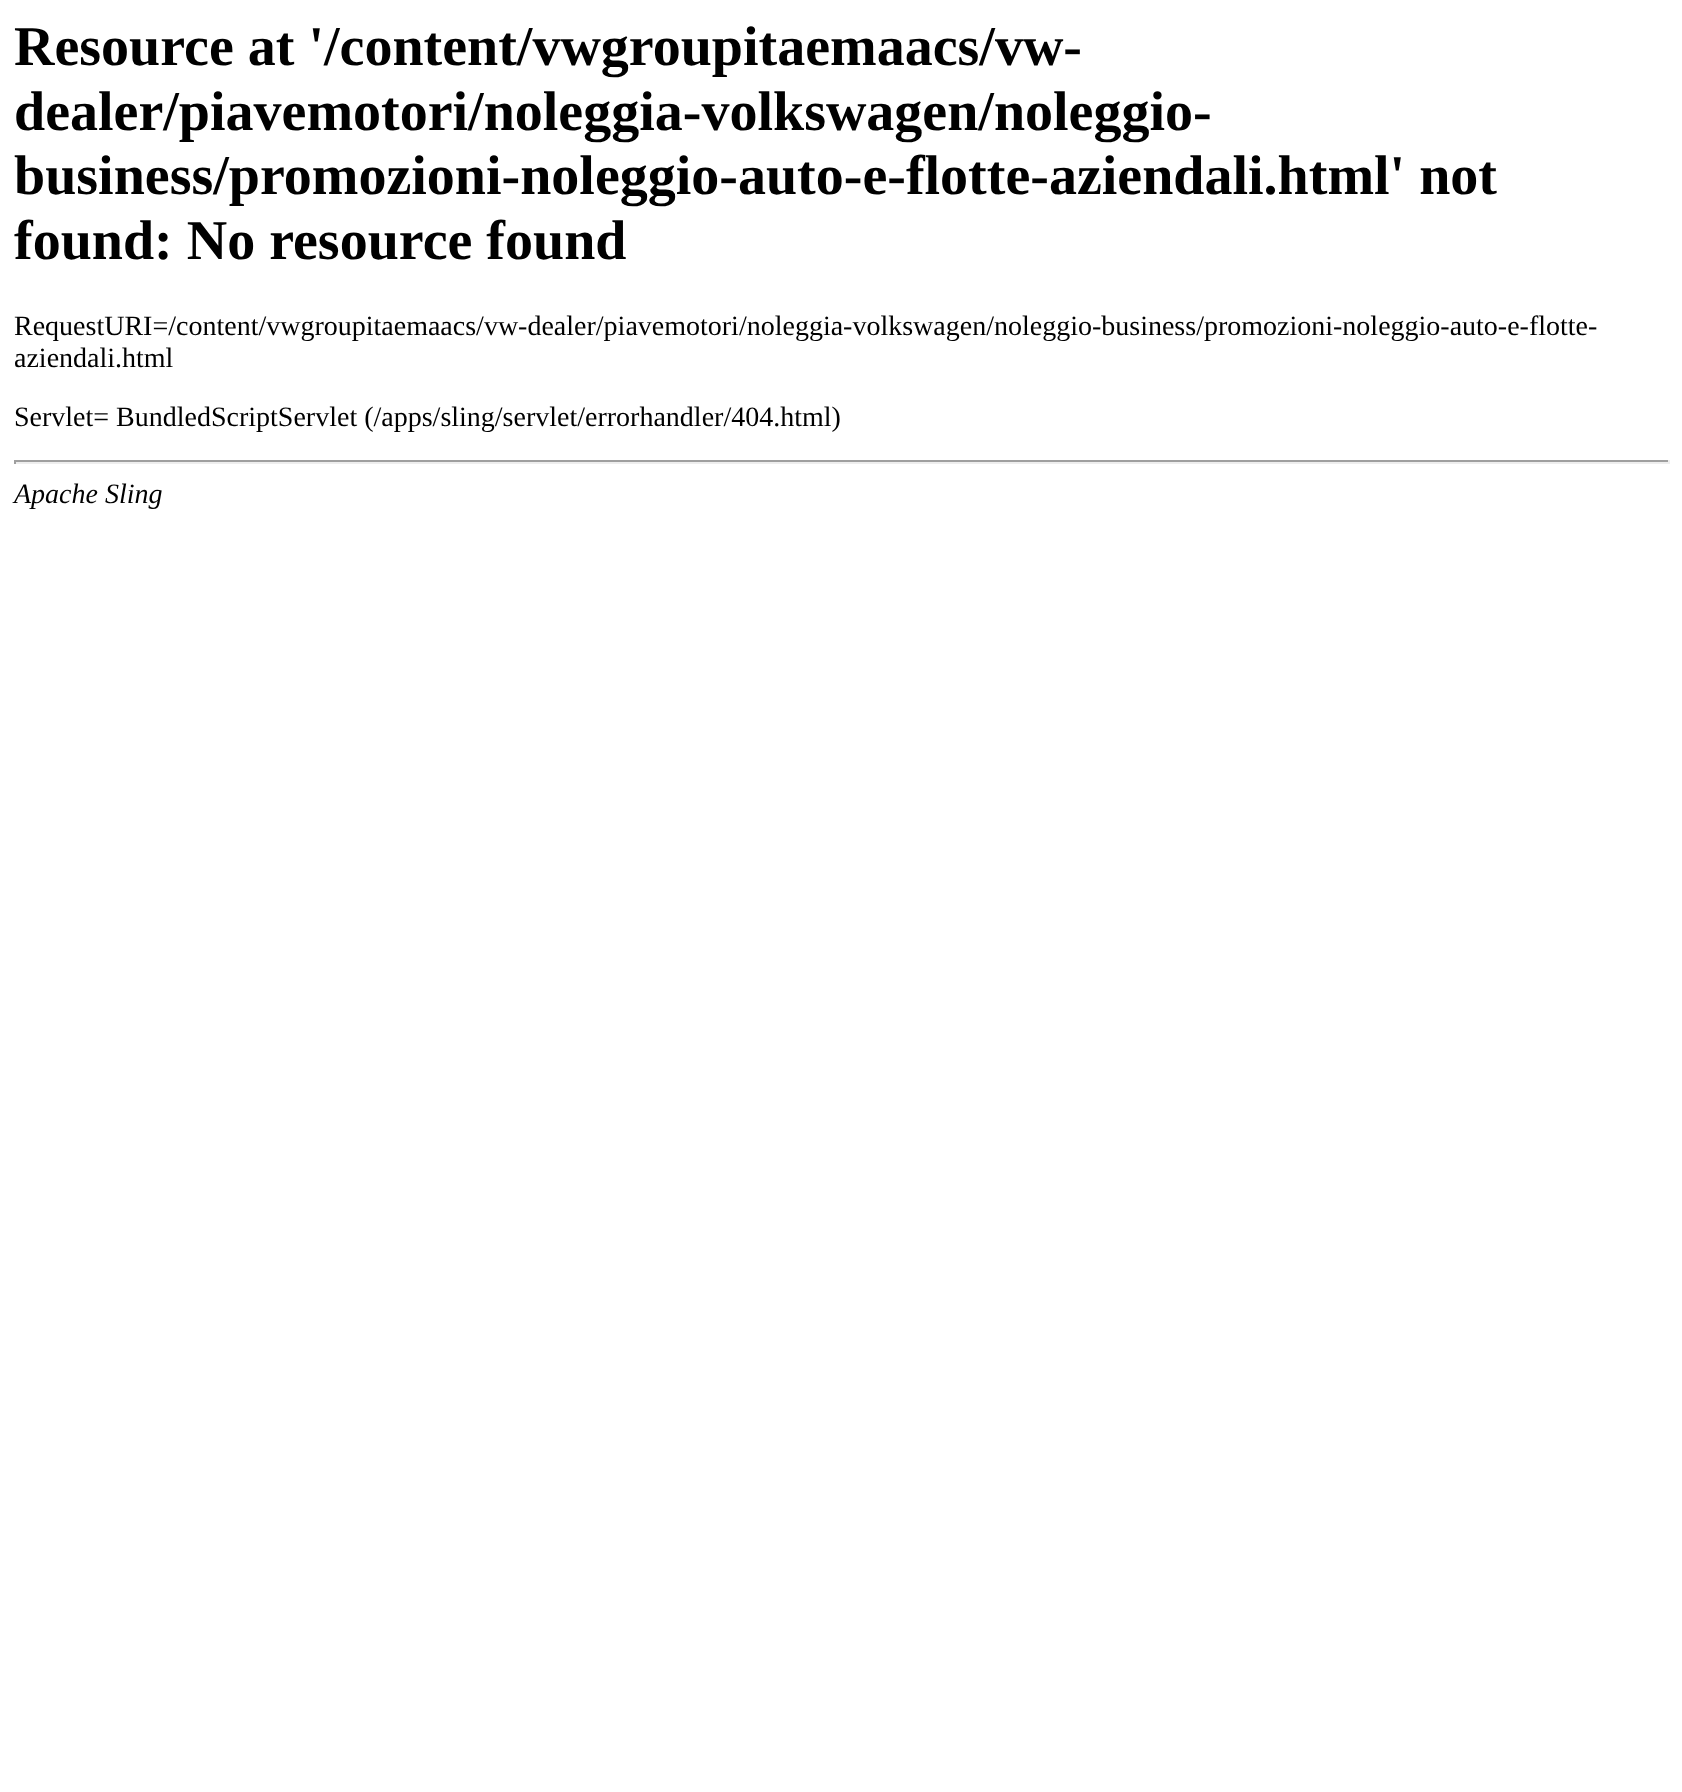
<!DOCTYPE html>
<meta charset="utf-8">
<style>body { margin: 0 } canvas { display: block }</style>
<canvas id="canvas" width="1682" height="1792"></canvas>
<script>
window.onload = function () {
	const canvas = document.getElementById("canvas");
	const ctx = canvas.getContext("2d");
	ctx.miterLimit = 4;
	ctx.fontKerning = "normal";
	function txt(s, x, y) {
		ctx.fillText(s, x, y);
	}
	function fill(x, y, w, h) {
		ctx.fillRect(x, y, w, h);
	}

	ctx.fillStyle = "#FFFFFF";
	fill(0, 0, 1682, 1792);
	ctx.fillStyle = "#9F9F9F";
	fill(14, 460, 1656, 2);
	ctx.fillStyle = "#EEEEEE";
	fill(1668, 460, 2, 4);
	fill(14, 462, 1656, 2);
	ctx.fillStyle = "#9F9F9F";
	fill(14, 460, 2, 4);
	ctx.font = "bold 56px Liberation Serif";
	ctx.fillStyle = "#000000";
	txt("Resource at '/content/vwgroupitaemaacs/vw-", 14, 65);
	txt("dealer/piavemotori/noleggia-volkswagen/noleggio-", 14, 130);
	txt("business/promozioni-noleggio-auto-e-flotte-aziendali.html' not", 14, 194);
	txt("found: No resource found", 14, 259);
	ctx.font = "28px Liberation Serif";
	txt("RequestURI=/content/vwgroupitaemaacs/vw-dealer/piavemotori/noleggia-volkswagen/noleggio-business/promozioni-noleggio-auto-e-flotte-", 14, 335);
	txt("aziendali.html", 14, 367);
	txt("Servlet= BundledScriptServlet (/apps/sling/servlet/errorhandler/404.html)", 14, 426);
	ctx.font = "italic 28px Liberation Serif";
	txt("Apache Sling", 14, 503);
};
</script>
